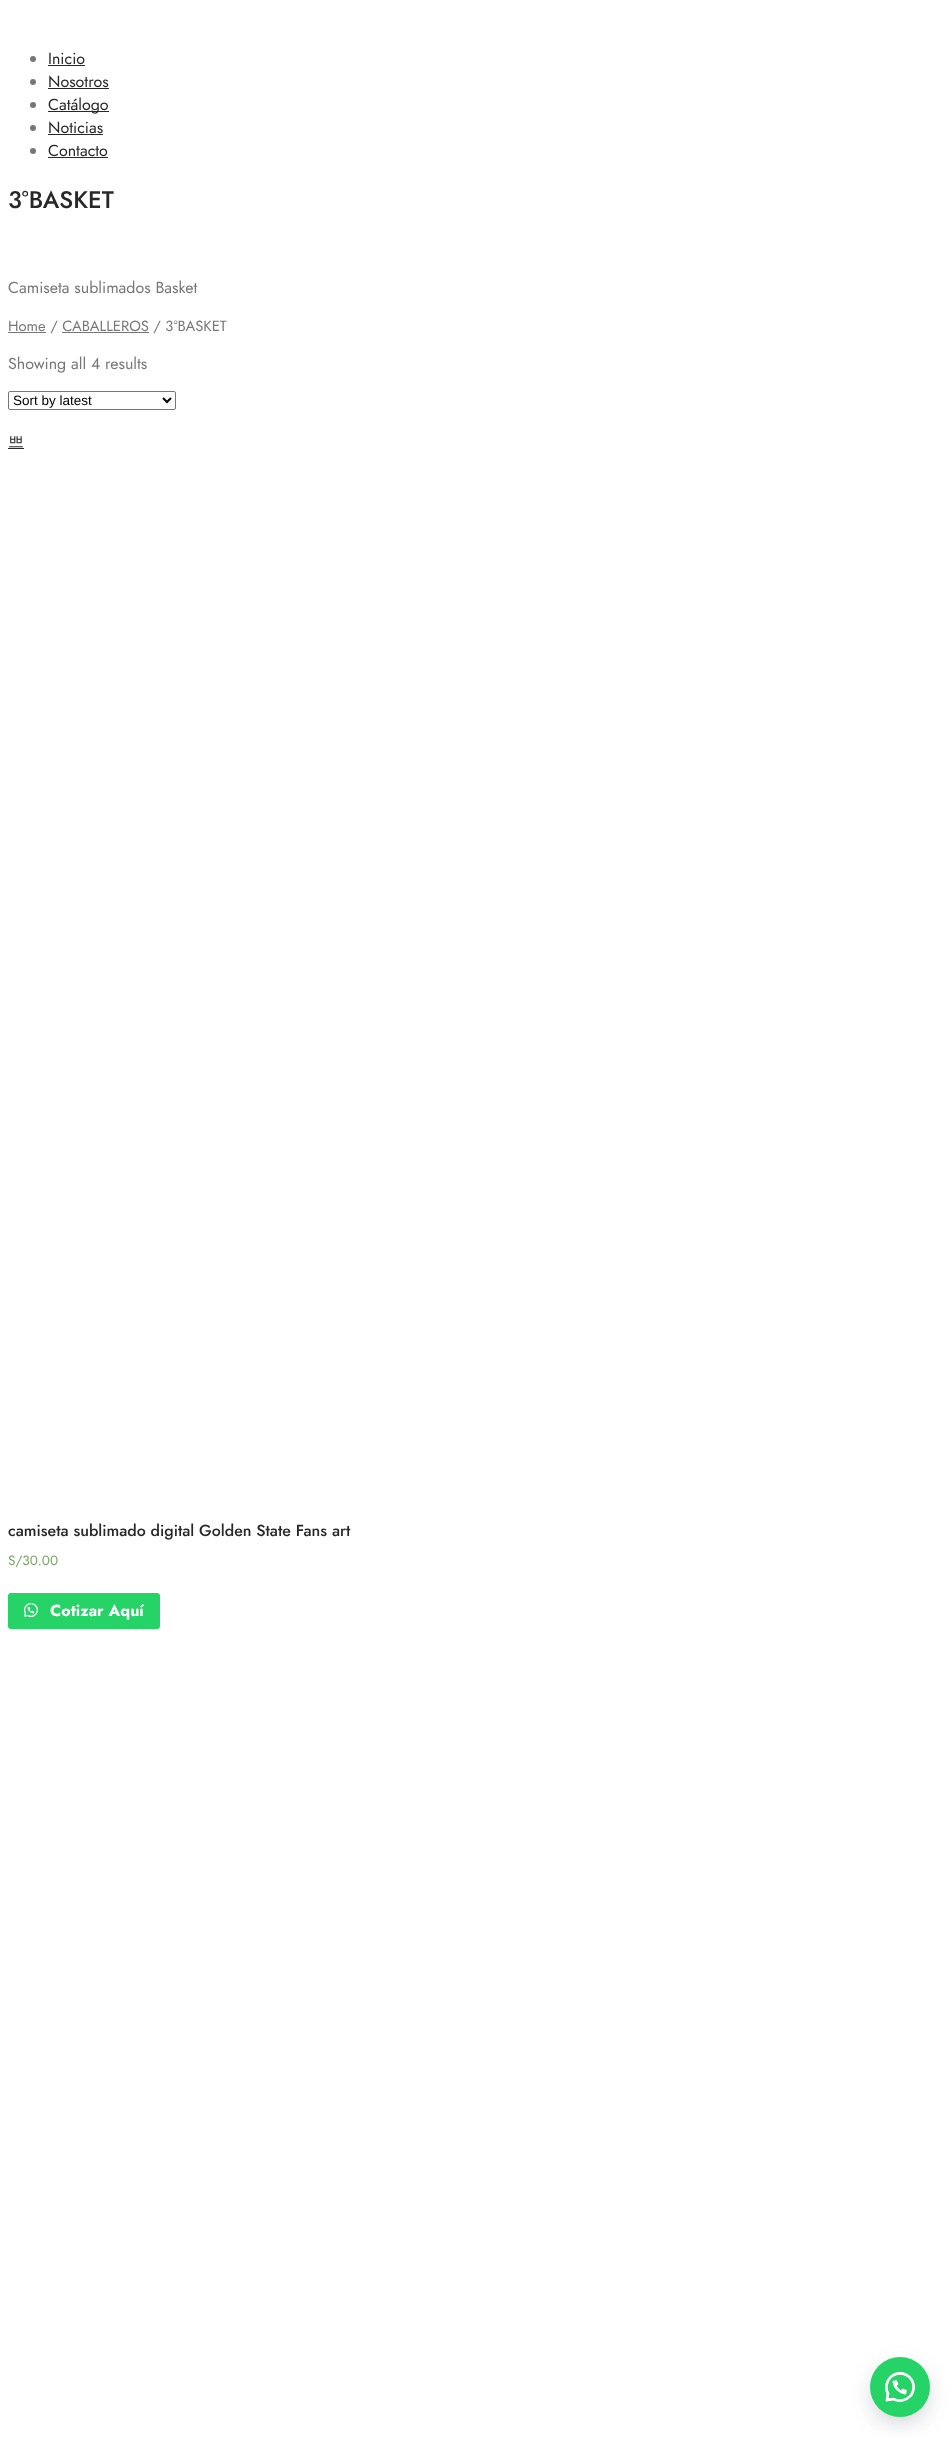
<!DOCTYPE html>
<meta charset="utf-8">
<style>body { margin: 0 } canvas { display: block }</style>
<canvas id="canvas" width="950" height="2437"></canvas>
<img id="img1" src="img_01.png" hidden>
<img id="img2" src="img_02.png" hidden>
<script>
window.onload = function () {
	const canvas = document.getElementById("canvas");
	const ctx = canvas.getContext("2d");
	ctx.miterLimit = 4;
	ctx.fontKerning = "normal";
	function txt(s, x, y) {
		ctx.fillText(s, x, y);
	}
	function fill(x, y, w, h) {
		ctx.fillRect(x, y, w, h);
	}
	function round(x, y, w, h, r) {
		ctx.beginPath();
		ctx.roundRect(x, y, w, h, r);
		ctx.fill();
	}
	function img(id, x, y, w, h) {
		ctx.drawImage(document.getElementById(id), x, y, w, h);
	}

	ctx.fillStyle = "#FFFFFF";
	fill(0, 0, 950, 2437);
	ctx.fillStyle = "#777777";
	ctx.beginPath();
	ctx.arc(33, 59, 3, 0, Math.PI * 2);
	ctx.fill();
	ctx.fillStyle = "#282828";
	fill(48, 65, 37, 1);
	ctx.fillStyle = "#777777";
	ctx.beginPath();
	ctx.arc(33, 82, 3, 0, Math.PI * 2);
	ctx.fill();
	ctx.fillStyle = "#282828";
	fill(48, 88, 61, 1);
	ctx.fillStyle = "#777777";
	ctx.beginPath();
	ctx.arc(33, 105, 3, 0, Math.PI * 2);
	ctx.fill();
	ctx.fillStyle = "#282828";
	fill(48, 111, 61, 1);
	ctx.fillStyle = "#777777";
	ctx.beginPath();
	ctx.arc(33, 128, 3, 0, Math.PI * 2);
	ctx.fill();
	ctx.fillStyle = "#282828";
	fill(48, 134, 55, 1);
	ctx.fillStyle = "#777777";
	ctx.beginPath();
	ctx.arc(33, 151, 3, 0, Math.PI * 2);
	ctx.fill();
	ctx.fillStyle = "#282828";
	fill(48, 157, 60, 1);
	ctx.fillStyle = "#767676";
	fill(8, 332, 38, 1);
	ctx.beginPath();
	ctx.roundRect(8.5, 391.5, 167, 18, 1.5);
	ctx.strokeStyle = "#767676";
	ctx.stroke();
	ctx.beginPath();
	ctx.moveTo(163, 398);
	ctx.lineTo(167, 402);
	ctx.lineTo(171, 398);
	ctx.strokeStyle = "#000000";
	ctx.lineWidth = 2;
	ctx.stroke();
	ctx.fillStyle = "#282828";
	fill(8, 448, 16, 1);
	ctx.fillStyle = "#25D366";
	round(8, 1593, 152, 36, 3);
	img("img1", 24, 1603, 14, 14);
	ctx.fillStyle = "rgba(45, 62, 79, 0.3)";
	ctx.filter = "blur(12.5px)";
	ctx.beginPath();
	ctx.roundRect(875, 2370, 50, 50, 25);
	ctx.fill();
	ctx.filter = "none";
	ctx.fillStyle = "#25D366";
	ctx.beginPath();
	ctx.arc(900, 2387, 30, 0, Math.PI * 2);
	ctx.fill();
	img("img2", 885, 2372, 30, 30);
	ctx.font = "16px Jost";
	ctx.fillStyle = "#282828";
	txt("Inicio", 48, 64);
	txt("Nosotros", 48, 87);
	txt("Catálogo", 48, 110);
	txt("Noticias", 48, 133);
	txt("Contacto", 48, 156);
	ctx.font = "500 24px Jost";
	txt("3°BASKET", 8, 208);
	ctx.font = "16px Jost";
	ctx.fillStyle = "#777777";
	txt("Camiseta sublimados Basket", 8, 293);
	ctx.font = "14.75px Jost";
	txt("Home / CABALLEROS / 3°BASKET", 8, 331);
	ctx.fillStyle = "#767676";
	fill(62, 332, 87, 1);
	ctx.font = "16px Jost";
	ctx.fillStyle = "#777777";
	txt("Showing all 4 results", 8, 369);
	ctx.font = "13.5px Liberation Sans";
	ctx.fillStyle = "#000000";
	txt("Sort by latest", 13, 405);
	ctx.font = "500 16px WenQuanYi Zen Hei";
	ctx.fillStyle = "#282828";
	txt("쁘", 8, 447);
	ctx.font = "500 16px Jost";
	txt("camiseta sublimado digital Golden State Fans art", 8, 1536);
	ctx.font = "13.5px Jost";
	ctx.fillStyle = "#77A464";
	txt("S/30.00", 8, 1565);
	ctx.font = "bold 16px Jost";
	ctx.fillStyle = "#FFFFFF";
	txt("Cotizar Aquí", 50, 1616);
};
</script>
